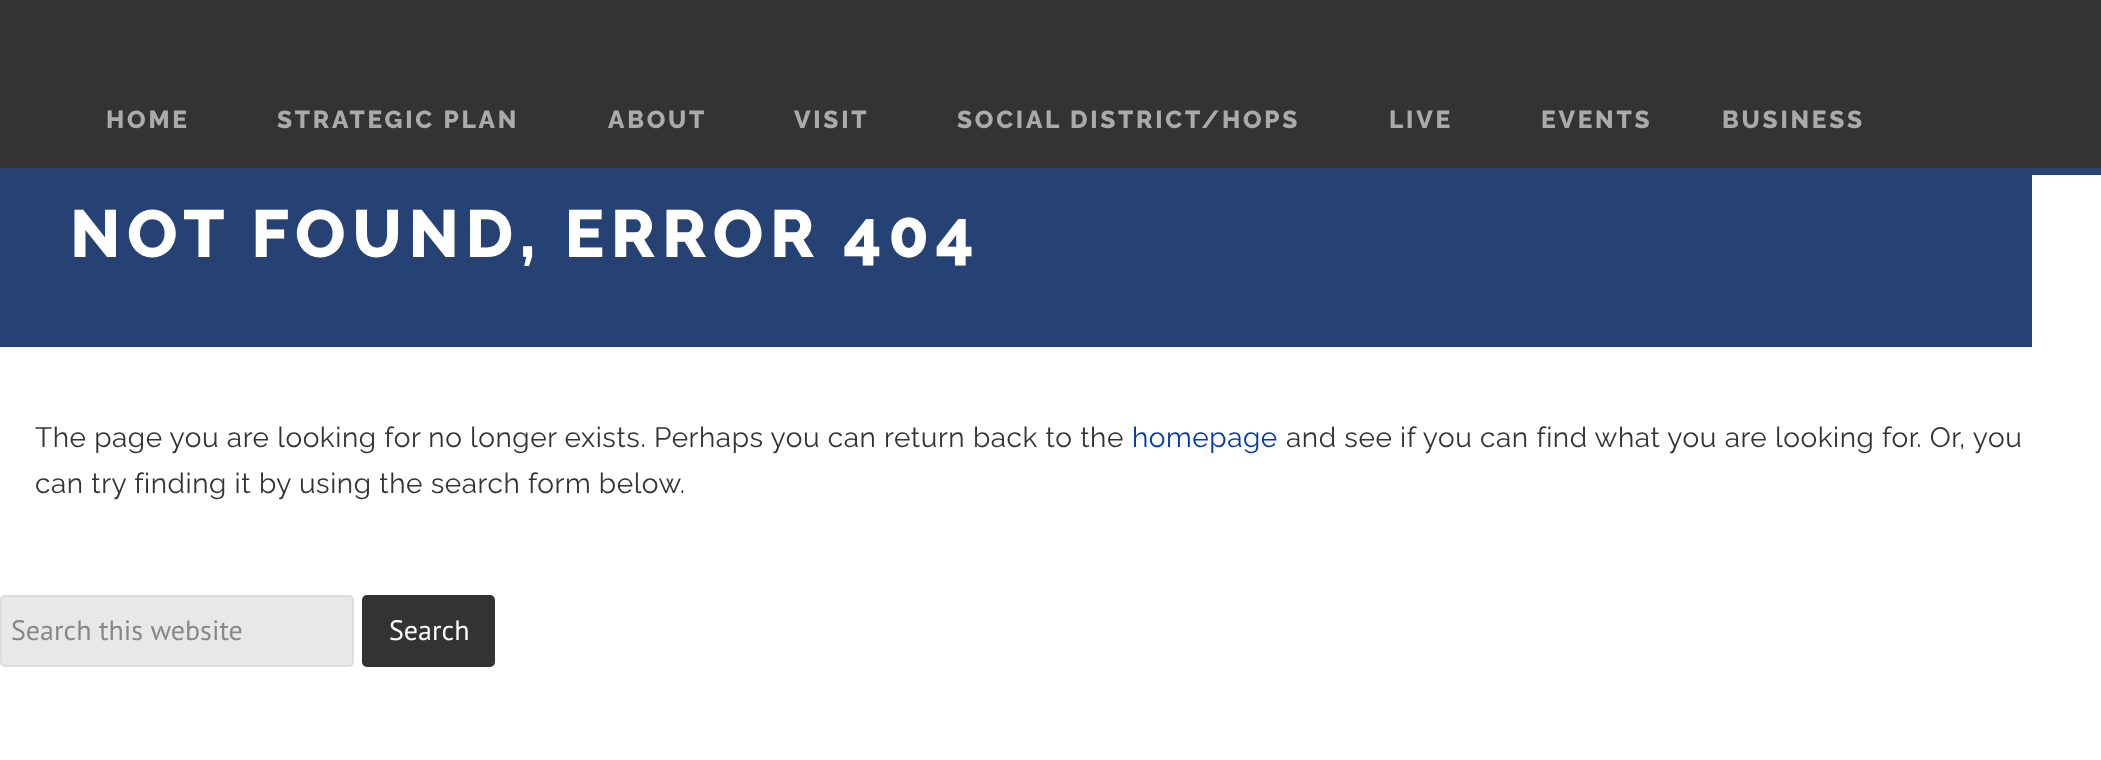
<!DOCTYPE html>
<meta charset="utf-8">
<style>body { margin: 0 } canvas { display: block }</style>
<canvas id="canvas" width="2101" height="760"></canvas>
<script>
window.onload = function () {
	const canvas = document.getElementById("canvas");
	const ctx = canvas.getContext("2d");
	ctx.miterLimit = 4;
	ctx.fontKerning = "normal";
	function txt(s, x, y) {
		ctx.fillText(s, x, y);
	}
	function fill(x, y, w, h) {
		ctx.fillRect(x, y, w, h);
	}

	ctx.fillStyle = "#FFFFFF";
	fill(0, 0, 2101, 760);
	ctx.fillStyle = "#333333";
	fill(0, 0, 2101, 168);
	ctx.fillStyle = "#284271";
	fill(0, 168, 2101, 7);
	ctx.fillStyle = "#264173";
	fill(0, 175, 2032, 172);
	ctx.fillStyle = "#E8E8E8";
	ctx.beginPath();
	ctx.roundRect(1, 596, 352, 70, 4);
	ctx.fill();
	ctx.strokeStyle = "#DDDDDD";
	ctx.lineWidth = 2;
	ctx.stroke();
	ctx.fillStyle = "#333333";
	ctx.beginPath();
	ctx.roundRect(363, 596, 131, 70, 4);
	ctx.fill();
	ctx.strokeStyle = "#333333";
	ctx.stroke();
	ctx.letterSpacing = "2.75px";
	ctx.font = "800 24.5px Raleway";
	ctx.fillStyle = "#AAAAAA";
	txt("HOME", 106, 128);
	txt("STRATEGIC PLAN", 277, 128);
	txt("ABOUT", 608, 128);
	txt("VISIT", 794, 128);
	txt("SOCIAL DISTRICT/HOPS", 957, 128);
	txt("LIVE", 1389, 128);
	txt("EVENTS", 1541, 128);
	txt("BUSINESS", 1722, 128);
	ctx.letterSpacing = "6.6px";
	ctx.font = "800 66.5px Raleway";
	ctx.fillStyle = "#FFFFFF";
	txt("NOT FOUND, ERROR 404", 70, 257);
	ctx.letterSpacing = "0.55px";
	ctx.font = "28px Raleway";
	ctx.fillStyle = "#333333";
	txt("The page you are looking for no longer exists. Perhaps you can return back to the", 35, 447);
	ctx.fillStyle = "#0037B4";
	txt("homepage", 1132, 447);
	ctx.fillStyle = "#333333";
	txt("and see if you can find what you are looking for. Or, you", 1286, 447);
	txt("can try finding it by using the search form below.", 35, 493);
	ctx.letterSpacing = "0px";
	ctx.font = "28px PT Sans";
	ctx.fillStyle = "#888888";
	txt("Search this website", 11, 640);
	ctx.fillStyle = "#FFFFFF";
	txt("Search", 389, 640);
};
</script>
